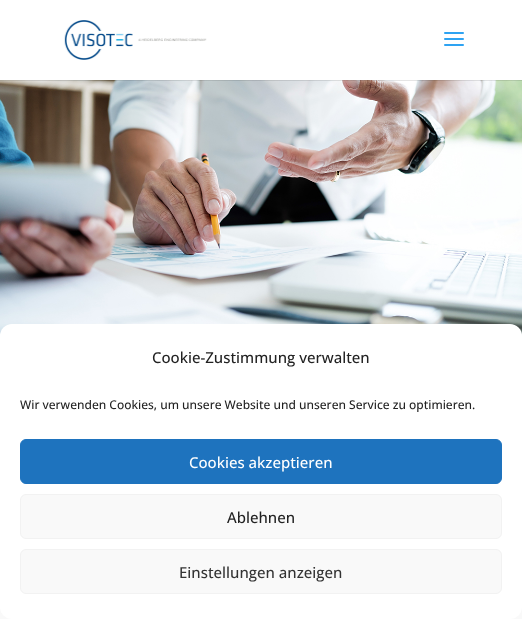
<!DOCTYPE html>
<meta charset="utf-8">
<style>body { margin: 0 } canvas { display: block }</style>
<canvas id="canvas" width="522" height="619"></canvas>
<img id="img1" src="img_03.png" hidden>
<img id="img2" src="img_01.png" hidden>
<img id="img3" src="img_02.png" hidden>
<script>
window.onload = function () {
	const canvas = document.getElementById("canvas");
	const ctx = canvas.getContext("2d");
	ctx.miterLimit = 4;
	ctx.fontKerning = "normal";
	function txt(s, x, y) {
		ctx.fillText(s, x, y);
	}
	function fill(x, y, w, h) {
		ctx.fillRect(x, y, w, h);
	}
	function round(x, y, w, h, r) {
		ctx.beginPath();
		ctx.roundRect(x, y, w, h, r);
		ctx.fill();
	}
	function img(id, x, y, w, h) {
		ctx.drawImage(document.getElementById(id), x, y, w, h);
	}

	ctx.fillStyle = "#FFFFFF";
	fill(0, 0, 522, 619);
	img("img1", 0, 80, 522, 256);
	ctx.fillStyle = "rgba(0, 0, 0, 0.1)";
	fill(0, 80, 522, 1);
	img("img2", 64, 20, 143, 40);
	img("img3", 444, 32, 20, 14);
	ctx.fillStyle = "#F9F9F9";
	fill(0, 607, 522, 12);
	ctx.fillStyle = "#FFFFFF";
	round(0, 324, 522, 295, 12);
	ctx.fillStyle = "#1E73BE";
	ctx.beginPath();
	ctx.roundRect(20.5, 439.5, 481, 44, 5.5);
	ctx.fill();
	ctx.strokeStyle = "#1E73BE";
	ctx.stroke();
	ctx.fillStyle = "#F9F9F9";
	ctx.beginPath();
	ctx.roundRect(20.5, 494.5, 481, 44, 5.5);
	ctx.fill();
	ctx.strokeStyle = "#F2F2F2";
	ctx.stroke();
	ctx.beginPath();
	ctx.roundRect(20.5, 549.5, 481, 44, 5.5);
	ctx.fill();
	ctx.stroke();
	ctx.font = "500 15px Open Sans";
	ctx.fillStyle = "#222222";
	txt("Cookie-Zustimmung verwalten", 152, 363);
	ctx.font = "500 12px Open Sans";
	txt("Wir verwenden Cookies, um unsere Website und unseren Service zu optimieren.", 20, 409);
	ctx.font = "500 15px Open Sans";
	ctx.fillStyle = "#FFFFFF";
	txt("Cookies akzeptieren", 189, 468);
	ctx.fillStyle = "#222222";
	txt("Ablehnen", 227, 523);
	ctx.fillStyle = "#333333";
	txt("Einstellungen anzeigen", 179, 578);
};
</script>
